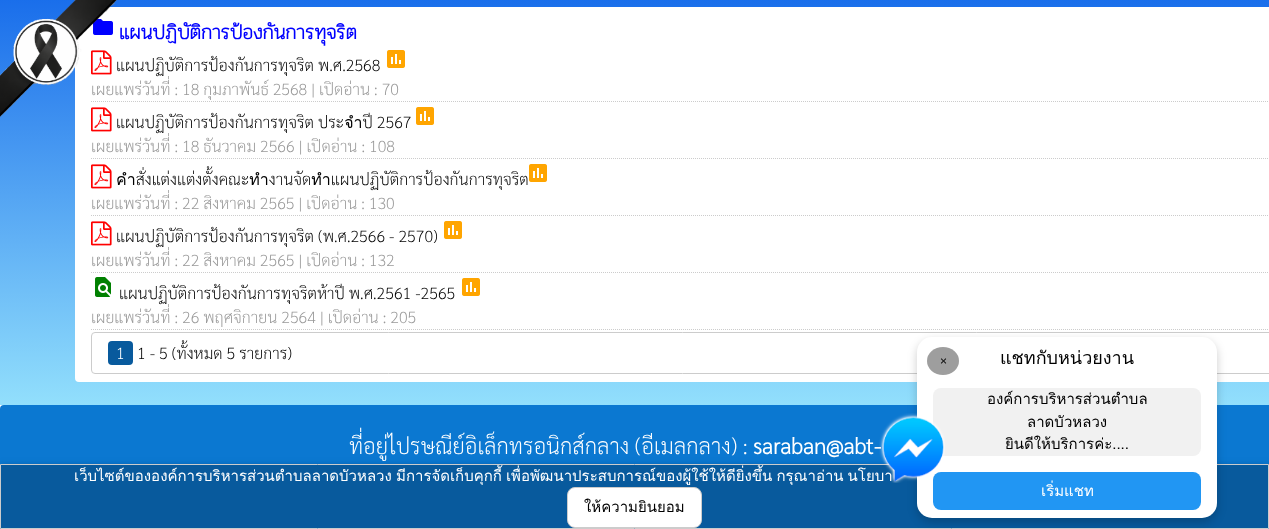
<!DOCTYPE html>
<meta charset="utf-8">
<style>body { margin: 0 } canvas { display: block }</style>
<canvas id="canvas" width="1269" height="529"></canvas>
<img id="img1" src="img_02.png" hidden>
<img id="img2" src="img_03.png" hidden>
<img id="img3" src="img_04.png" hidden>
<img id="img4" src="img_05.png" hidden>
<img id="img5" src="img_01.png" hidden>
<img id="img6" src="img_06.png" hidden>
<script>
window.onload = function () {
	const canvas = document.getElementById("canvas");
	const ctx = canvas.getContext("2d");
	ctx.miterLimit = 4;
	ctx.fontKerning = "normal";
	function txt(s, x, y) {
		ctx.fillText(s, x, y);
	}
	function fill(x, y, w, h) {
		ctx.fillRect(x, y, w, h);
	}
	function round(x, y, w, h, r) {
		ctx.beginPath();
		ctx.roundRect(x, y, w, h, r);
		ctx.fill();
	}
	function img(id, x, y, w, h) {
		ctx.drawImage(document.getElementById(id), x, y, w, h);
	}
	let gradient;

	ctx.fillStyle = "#FFFFFF";
	fill(0, 0, 1269, 529);
	gradient = ctx.createLinearGradient(700, -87, 700, 405);
	gradient.addColorStop(0, "#0056E7");
	gradient.addColorStop(1, "#92DFFC");
	ctx.fillStyle = gradient;
	fill(0, 0, 1269, 405);
	ctx.fillStyle = "#FFFFFF";
	round(75, 7, 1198, 375, 4);
	img("img1", 93, 19, 20, 16);
	img("img2", 91, 50, 21, 25);
	img("img3", 387, 50, 18, 18);
	ctx.beginPath();
	ctx.moveTo(91, 101.5);
	ctx.lineTo(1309, 101.5);
	ctx.strokeStyle = "#CCCCCC";
	ctx.setLineDash([1, 1]);
	ctx.stroke();
	img("img2", 91, 107, 21, 25);
	img("img3", 416, 107, 18, 18);
	ctx.beginPath();
	ctx.moveTo(91, 158.5);
	ctx.lineTo(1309, 158.5);
	ctx.stroke();
	img("img2", 91, 164, 21, 25);
	img("img3", 529, 164, 18, 18);
	ctx.beginPath();
	ctx.moveTo(91, 215.5);
	ctx.lineTo(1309, 215.5);
	ctx.stroke();
	img("img2", 91, 221, 21, 25);
	img("img3", 444, 221, 18, 18);
	ctx.beginPath();
	ctx.moveTo(91, 272.5);
	ctx.lineTo(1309, 272.5);
	ctx.stroke();
	img("img4", 95, 277, 16, 20);
	img("img3", 462, 278, 18, 18);
	ctx.beginPath();
	ctx.moveTo(91, 329.5);
	ctx.lineTo(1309, 329.5);
	ctx.stroke();
	ctx.beginPath();
	ctx.roundRect(91.5, 332.5, 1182, 41, 3.5);
	ctx.setLineDash([]);
	ctx.stroke();
	ctx.fillStyle = "#085A9D";
	round(108, 341, 25, 24, 4);
	ctx.fillStyle = "#0B78D1";
	round(0, 405, 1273, 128, 4);
	ctx.fillStyle = "rgba(0, 0, 0, 0.12)";
	ctx.filter = "blur(5px)";
	ctx.beginPath();
	ctx.rect(0, 466, 1269, 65);
	ctx.fill();
	ctx.filter = "none";
	ctx.fillStyle = "rgba(0, 0, 0, 0.16)";
	ctx.filter = "blur(2.5px)";
	ctx.beginPath();
	ctx.rect(0, 466, 1269, 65);
	ctx.fill();
	ctx.filter = "none";
	ctx.fillStyle = "#085A9D";
	ctx.beginPath();
	ctx.rect(0.5, 464.5, 1268, 64);
	ctx.fill();
	ctx.stroke();
	ctx.fillStyle = "rgba(0, 0, 0, 0.2)";
	ctx.filter = "blur(5px)";
	ctx.beginPath();
	ctx.roundRect(917, 341, 300, 181, 15);
	ctx.fill();
	ctx.filter = "none";
	ctx.fillStyle = "#FFFFFF";
	round(917, 337, 300, 181, 15);
	ctx.fillStyle = "#9E9E9E";
	ctx.beginPath();
	ctx.ellipse(943, 361, 16, 14, 0, 0, Math.PI * 2);
	ctx.fill();
	ctx.fillStyle = "#F1F1F1";
	round(933, 388, 268, 68, 8);
	ctx.fillStyle = "#2196F3";
	round(933, 472, 268, 38, 8);
	ctx.fillStyle = "#FFFFFF";
	ctx.beginPath();
	ctx.roundRect(567.5, 487.5, 134, 40, 7.5);
	ctx.fill();
	ctx.stroke();
	ctx.font = "bold 20px Pridi";
	ctx.fillStyle = "#0000FF";
	txt("แผนปฏิบัติการป้องกันการทุจริต", 119, 39);
	ctx.font = "200 16px Sarabun";
	ctx.fillStyle = "#000000";
	txt("แผนปฏิบัติการป้องกันการทุจริต พ.ศ.2568", 116, 71);
	ctx.fillStyle = "#999999";
	txt("เผยแพร่วันที่ : 18 กุมภาพันธ์ 2568 | เปิดอ่าน : 70", 91, 95);
	ctx.fillStyle = "#000000";
	txt("แผนปฏิบัติการป้องกันการทุจริต ประจำปี 2567", 116, 128);
	img("img5", 0, 0, 117, 118);
	ctx.fillStyle = "#999999";
	txt("เผยแพร่วันที่ : 18 ธันวาคม 2566 | เปิดอ่าน : 108", 91, 152);
	ctx.fillStyle = "#000000";
	txt("คำสั่งแต่งแต่งตั้งคณะทำงานจัดทำแผนปฏิบัติการป้องกันการทุจริต", 116, 185);
	ctx.fillStyle = "#999999";
	txt("เผยแพร่วันที่ : 22 สิงหาคม 2565 | เปิดอ่าน : 130", 91, 209);
	ctx.fillStyle = "#000000";
	txt("แผนปฏิบัติการป้องกันการทุจริต (พ.ศ.2566 - 2570)", 116, 242);
	ctx.fillStyle = "#999999";
	txt("เผยแพร่วันที่ : 22 สิงหาคม 2565 | เปิดอ่าน : 132", 91, 266);
	ctx.fillStyle = "#000000";
	txt("แผนปฏิบัติการป้องกันการทุจริตห้าปี พ.ศ.2561 -2565", 119, 299);
	ctx.fillStyle = "#999999";
	txt("เผยแพร่วันที่ : 26 พฤศจิกายน 2564 | เปิดอ่าน : 205", 91, 323);
	ctx.fillStyle = "#FFFFFF";
	txt("1", 116, 359);
	ctx.fillStyle = "#000000";
	txt("1 - 5 (ทั้งหมด 5 รายการ)", 137, 359);
	ctx.font = "200 22px Sarabun";
	ctx.fillStyle = "#FFFFFF";
	txt("ที่อยู่ไปรษณีย์อิเล็กทรอนิกส์กลาง (อีเมลกลาง) :", 349, 454);
	ctx.font = "bold 22px Sarabun";
	txt("saraban@abt-", 753, 454);
	ctx.font = "12px Liberation Sans";
	ctx.fillStyle = "#000000";
	txt("×", 940, 365);
	ctx.font = "18px Loma";
	txt("แชทกับหน่วยงาน", 1000, 364);
	ctx.font = "15px Loma";
	txt("องค์การบริหารส่วนตำบล", 987, 404);
	txt("ลาดบัวหลวง", 1027, 427);
	txt("ยินดีให้บริการค่ะ....", 1005, 449);
	ctx.fillStyle = "#FFFFFF";
	txt("เริ่มแชท", 1041, 496);
	txt("เว็บไซต์ขององค์การบริหารส่วนตำบลลาดบัวหลวง", 74, 481);
	ctx.wordSpacing = "-1px";
	txt("มีการจัดเก็บคุกกี้ เพื่อพัฒนาประสบการณ์ของผู้ใช้ให้ดียิ่งขึ้น กรุณาอ่าน นโยบา", 396, 481);
	img("img6", 879, 413, 66, 70);
	ctx.wordSpacing = "0px";
	ctx.fillStyle = "#000000";
	txt("ให้ความยินยอม", 584, 512);
};
</script>
